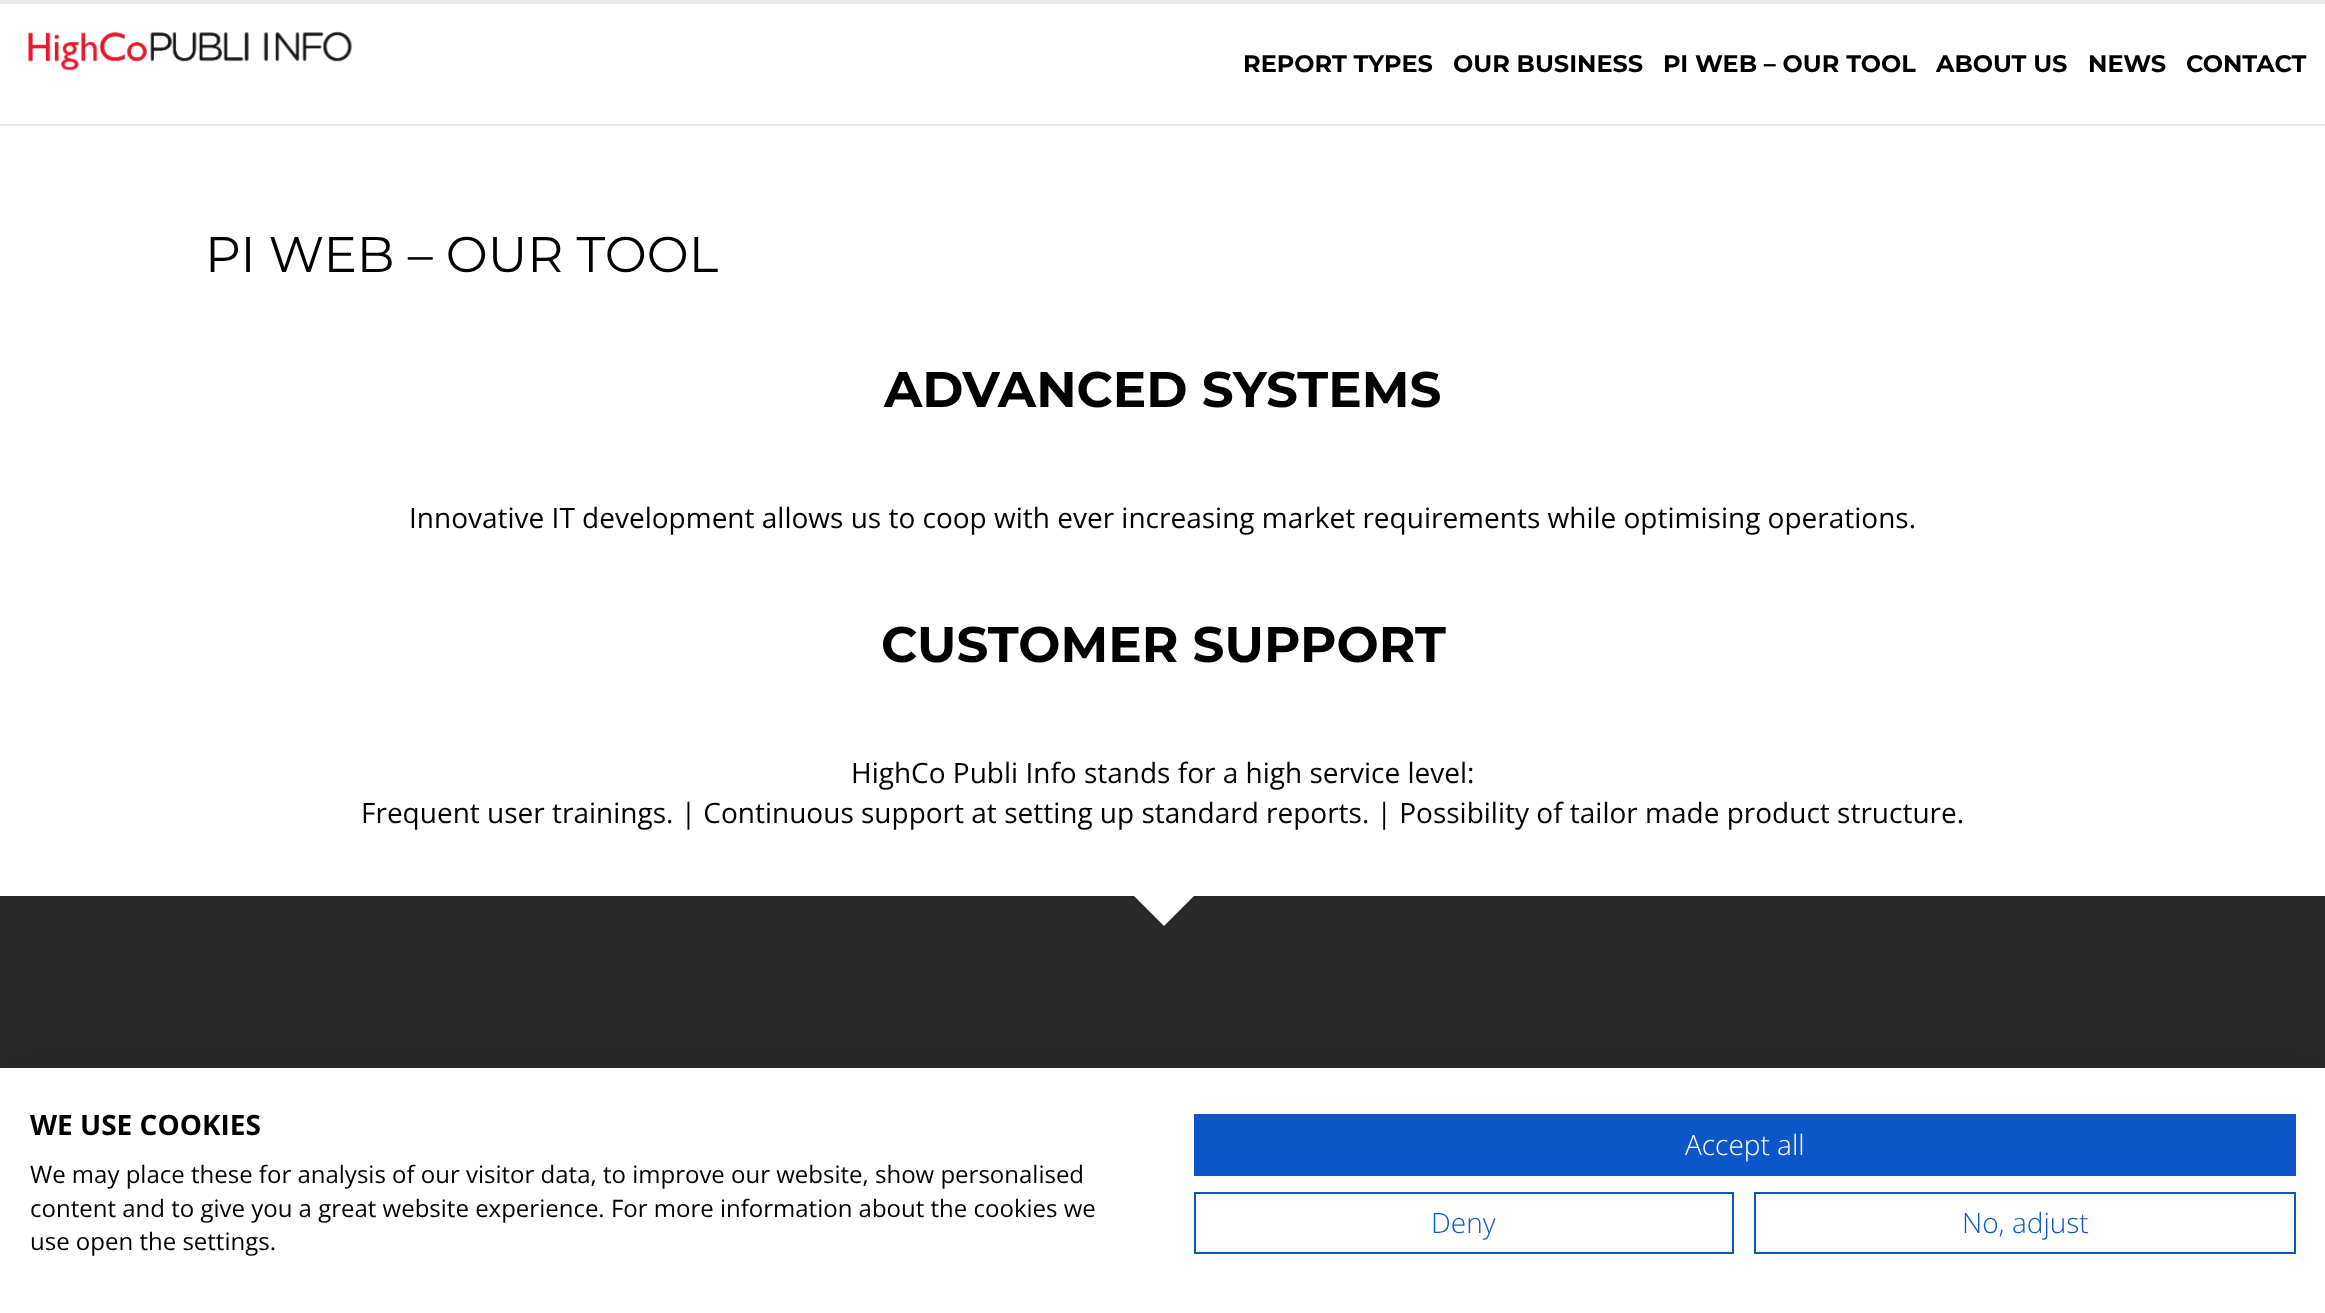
<!DOCTYPE html>
<meta charset="utf-8">
<style>body { margin: 0 } canvas { display: block }</style>
<canvas id="canvas" width="2325" height="1313"></canvas>
<img id="img1" src="img_01.png" hidden>
<script>
window.onload = function () {
	const canvas = document.getElementById("canvas");
	const ctx = canvas.getContext("2d");
	ctx.miterLimit = 4;
	ctx.fontKerning = "normal";
	function txt(s, x, y) {
		ctx.fillText(s, x, y);
	}
	function fill(x, y, w, h) {
		ctx.fillRect(x, y, w, h);
	}
	function img(id, x, y, w, h) {
		ctx.drawImage(document.getElementById(id), x, y, w, h);
	}

	ctx.fillStyle = "#FFFFFF";
	fill(0, 0, 2325, 1313);
	ctx.fillStyle = "#E9E9E9";
	fill(0, 0, 2325, 4);
	ctx.fillStyle = "#E7E7E7";
	fill(0, 124, 2325, 2);
	img("img1", 28, 31, 325, 40);
	ctx.fillStyle = "#292929";
	fill(0, 896, 2325, 172);
	ctx.fillStyle = "#FFFFFF";
	ctx.beginPath();
	ctx.moveTo(1134, 896);
	ctx.lineTo(1194, 896);
	ctx.lineTo(1164, 926);
	ctx.closePath();
	ctx.fill();
	ctx.fillStyle = "rgba(0, 0, 0, 0.1)";
	ctx.filter = "blur(24px)";
	ctx.beginPath();
	ctx.rect(0, 1068, 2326, 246);
	ctx.fill();
	ctx.filter = "none";
	ctx.fillStyle = "#FFFFFF";
	fill(0, 1068, 2325, 245);
	ctx.fillStyle = "#0D56C9";
	fill(1194, 1114, 1102, 62);
	ctx.strokeStyle = "#0D56C9";
	ctx.lineWidth = 2;
	ctx.strokeRect(1195, 1193, 538, 60);
	ctx.strokeRect(1755, 1193, 540, 60);
	ctx.font = "bold 24px Montserrat";
	ctx.fillStyle = "#000000";
	txt("REPORT TYPES", 1243, 72);
	txt("OUR BUSINESS", 1453, 72);
	txt("PI WEB – OUR TOOL", 1663, 72);
	txt("ABOUT US", 1936, 72);
	txt("NEWS", 2088, 72);
	txt("CONTACT", 2186, 72);
	ctx.font = "50px Montserrat";
	txt("PI WEB – OUR TOOL", 205, 272);
	ctx.font = "bold 50px Montserrat";
	txt("ADVANCED SYSTEMS", 884, 407);
	ctx.font = "28px Open Sans";
	txt("Innovative IT development allows us to coop with ever increasing market requirements while optimising operations.", 409, 528);
	ctx.font = "bold 50px Montserrat";
	txt("CUSTOMER SUPPORT", 881, 662);
	ctx.font = "28px Open Sans";
	txt("HighCo Publi Info stands for a high service level:", 851, 783);
	txt("Frequent user trainings. | Continuous support at setting up standard reports. | Possibility of tailor made product structure.", 361, 823);
	ctx.font = "bold 28px Open Sans";
	txt("WE USE COOKIES", 30, 1135);
	ctx.font = "24px Open Sans";
	txt("We may place these for analysis of our visitor data, to improve our website, show personalised", 30, 1183);
	txt("content and to give you a great website experience. For more information about the cookies we", 30, 1217);
	txt("use open the settings.", 30, 1250);
	ctx.font = "300 28px Open Sans";
	ctx.fillStyle = "#FFFFFF";
	txt("Accept all", 1685, 1155);
	ctx.fillStyle = "#0D56C9";
	txt("Deny", 1431, 1233);
	txt("No, adjust", 1962, 1233);
};
</script>
